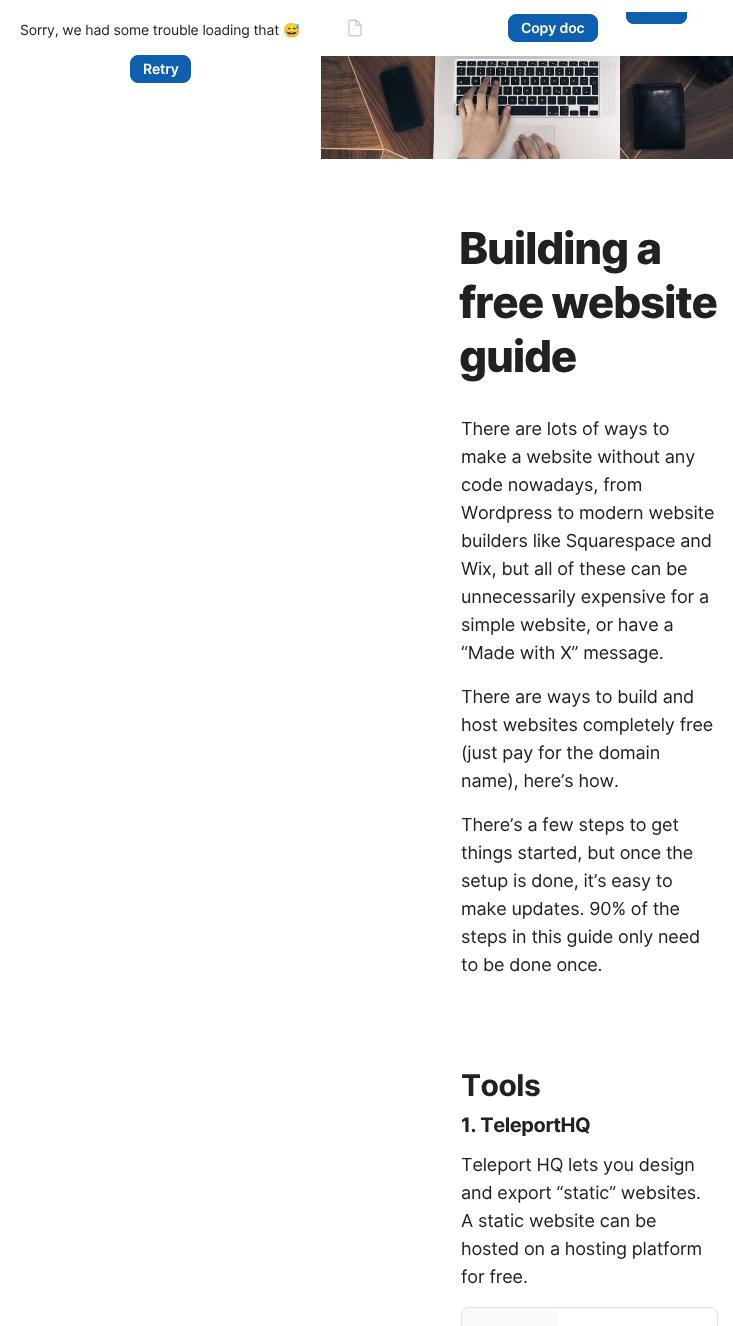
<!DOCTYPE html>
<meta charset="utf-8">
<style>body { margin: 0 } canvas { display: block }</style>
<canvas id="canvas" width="733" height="1326"></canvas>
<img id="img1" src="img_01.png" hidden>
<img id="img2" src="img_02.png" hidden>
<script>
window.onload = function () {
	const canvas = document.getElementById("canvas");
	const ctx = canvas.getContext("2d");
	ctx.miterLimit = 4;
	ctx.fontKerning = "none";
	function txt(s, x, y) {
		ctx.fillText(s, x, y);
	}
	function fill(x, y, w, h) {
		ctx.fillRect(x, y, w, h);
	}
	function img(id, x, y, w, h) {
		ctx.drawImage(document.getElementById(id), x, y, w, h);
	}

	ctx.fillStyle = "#FFFFFF";
	fill(0, 0, 733, 1326);
	ctx.fillStyle = "#0F5FAF";
	ctx.beginPath();
	ctx.roundRect(130.5, 55.5, 60, 27, 7.5);
	ctx.fill();
	ctx.strokeStyle = "#0F5FAF";
	ctx.stroke();
	img("img1", 348, 19, 14, 18);
	ctx.beginPath();
	ctx.roundRect(626, 12, 61, 12, [0, 0, 8, 8]);
	ctx.fill();
	ctx.save();
	ctx.beginPath();
	ctx.rect(488, 12, 227, 32);
	ctx.clip();
	ctx.beginPath();
	ctx.roundRect(626.5, -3.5, 60, 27, 7.5);
	ctx.stroke();
	ctx.restore();
	ctx.beginPath();
	ctx.roundRect(508.5, 14.5, 89, 27, 7.5);
	ctx.fill();
	ctx.stroke();
	img("img2", 321, 56, 412, 103);
	ctx.beginPath();
	ctx.roundRect(461.5, 1307.5, 256, 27, 7.5);
	ctx.strokeStyle = "#E0E0E0";
	ctx.stroke();
	ctx.fillStyle = "#FAFAFA";
	ctx.beginPath();
	ctx.roundRect(462, 1308, 96, 18, [7, 0, 0, 0]);
	ctx.fill();
	ctx.letterSpacing = "-0.15px";
	ctx.font = "14px Inter";
	ctx.fillStyle = "#212121";
	txt("Sorry, we had some trouble loading that", 20, 35);
	ctx.font = "14px Noto Color Emoji";
	txt("😅", 283, 35);
	ctx.font = "600 14px Inter";
	ctx.fillStyle = "#FFFFFF";
	txt("Retry", 143, 74);
	txt("Copy doc", 521, 33);
	ctx.letterSpacing = "-1.25px";
	ctx.font = "800 44px Inter";
	ctx.fillStyle = "#212121";
	txt("Building a", 459, 264);
	txt("free website", 459, 318);
	txt("guide", 459, 372);
	ctx.letterSpacing = "-0.15px";
	ctx.font = "18px Inter";
	txt("There are lots of ways to", 461, 435);
	txt("make a website without any", 461, 463);
	txt("code nowadays, from", 461, 491);
	txt("Wordpress to modern website", 461, 519);
	txt("builders like Squarespace and", 461, 547);
	txt("Wix, but all of these can be", 461, 575);
	txt("unnecessarily expensive for a", 461, 603);
	txt("simple website, or have a", 461, 631);
	txt("“Made with X” message.", 461, 659);
	txt("There are ways to build and", 461, 703);
	txt("host websites completely free", 461, 731);
	txt("(just pay for the domain", 461, 759);
	txt("name), here’s how.", 461, 787);
	txt("There’s a few steps to get", 461, 831);
	txt("things started, but once the", 461, 859);
	txt("setup is done, it’s easy to", 461, 887);
	txt("make updates. 90% of the", 461, 915);
	txt("steps in this guide only need", 461, 943);
	txt("to be done once.", 461, 971);
	ctx.letterSpacing = "-0.5px";
	ctx.font = "bold 30px Inter";
	txt("Tools", 461, 1096);
	ctx.letterSpacing = "-0.4px";
	ctx.font = "bold 20px Inter";
	txt("1. TeleportHQ", 461, 1132);
	ctx.letterSpacing = "-0.15px";
	ctx.font = "18px Inter";
	txt("Teleport HQ lets you design", 461, 1171);
	txt("and export “static” websites.", 461, 1199);
	txt("A static website can be", 461, 1227);
	txt("hosted on a hosting platform", 461, 1255);
	txt("for free.", 461, 1283);
};
</script>
